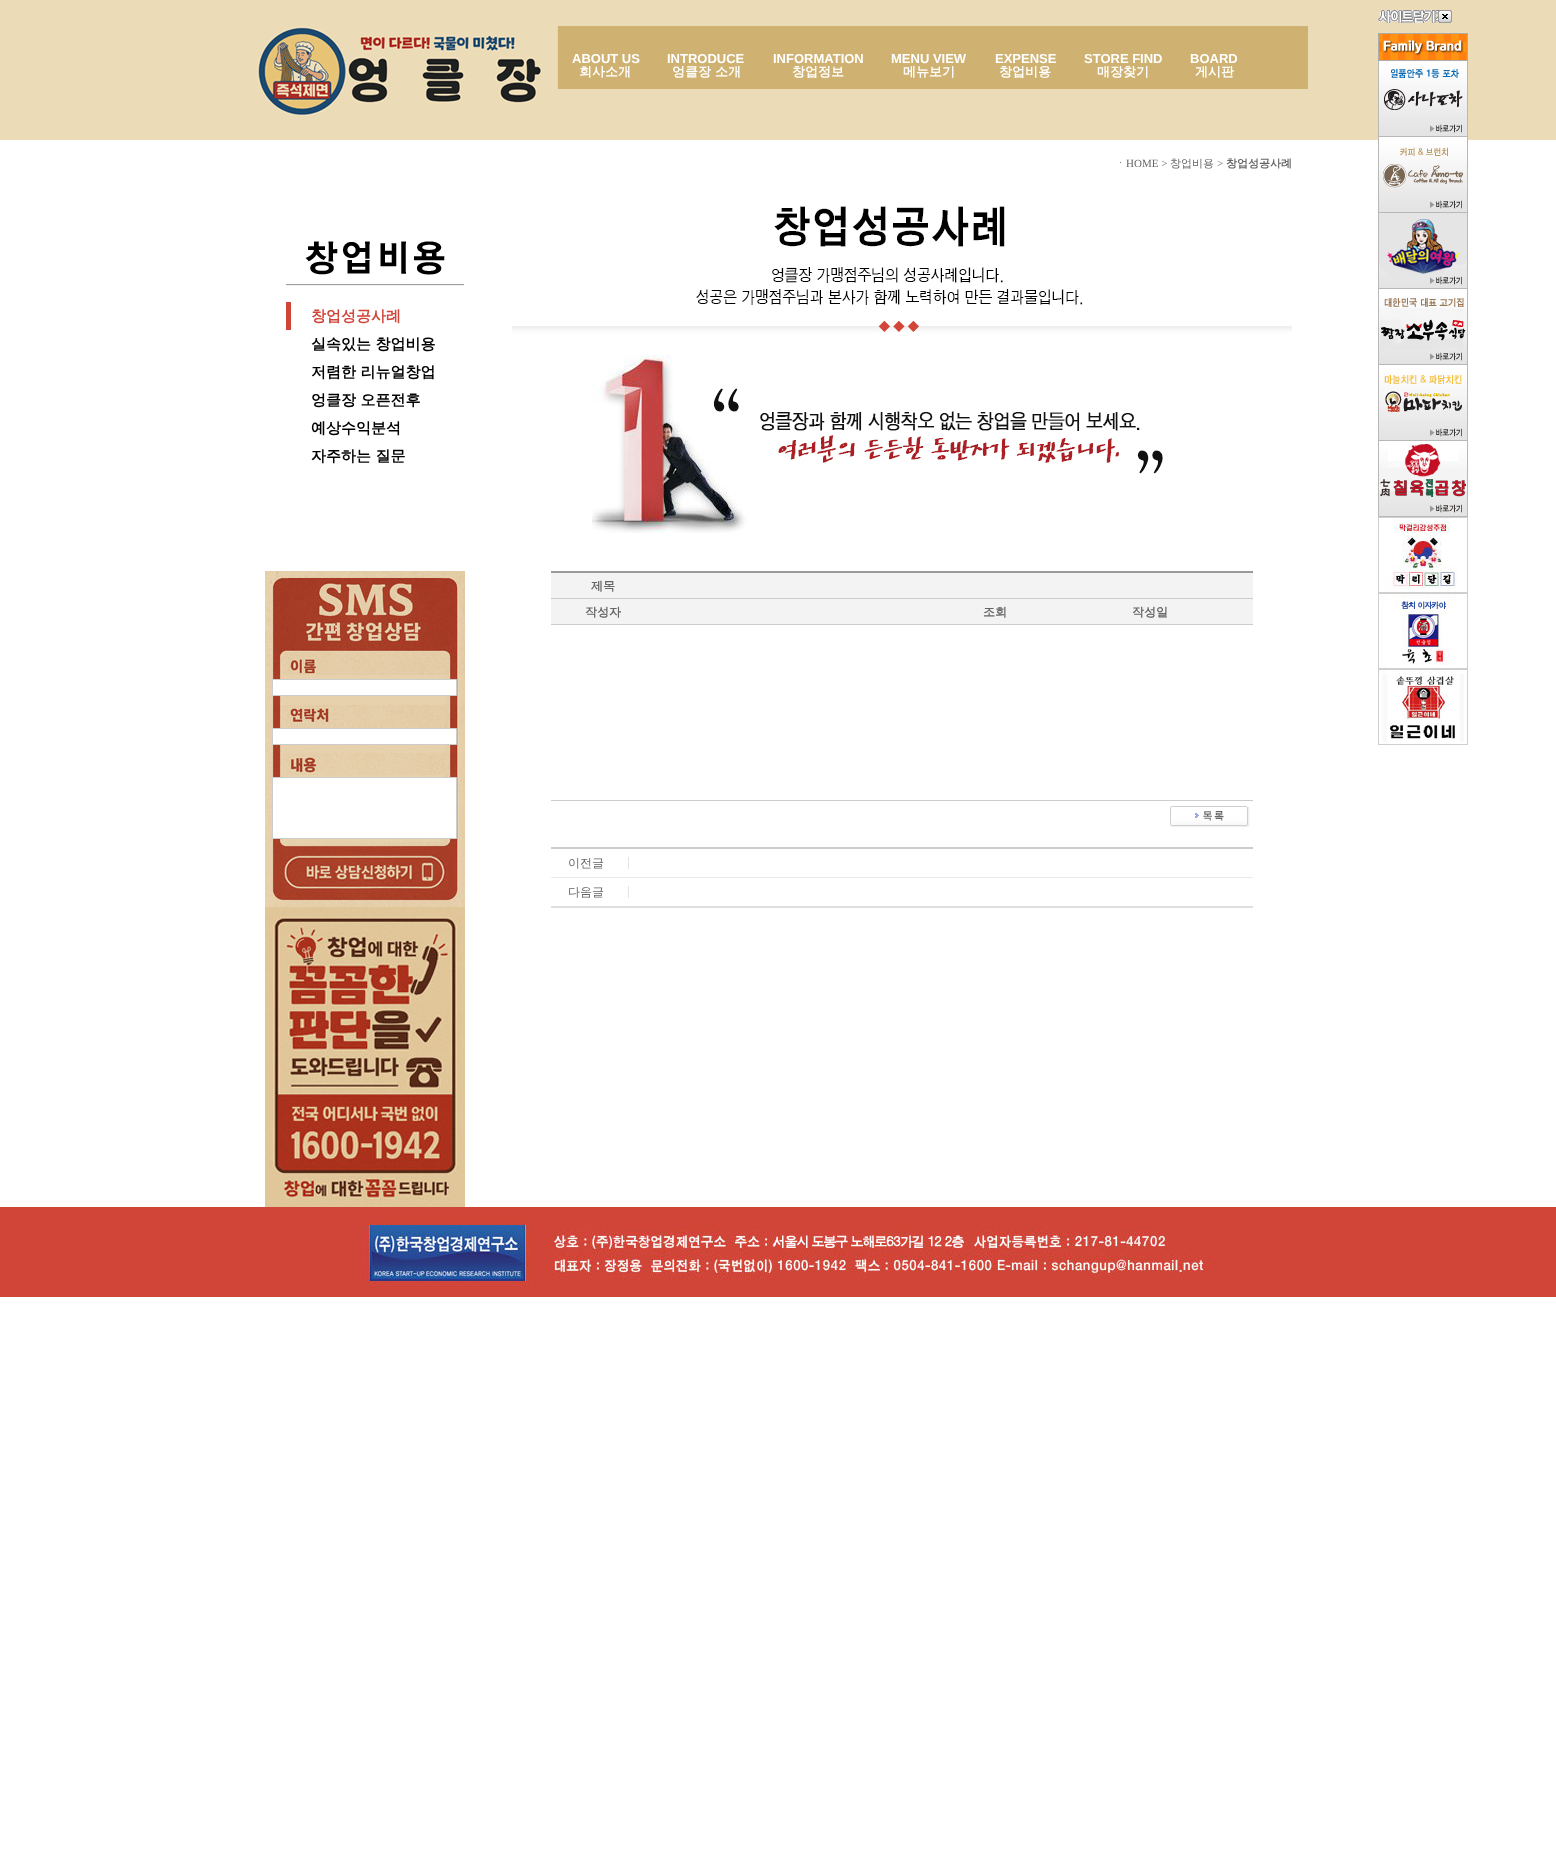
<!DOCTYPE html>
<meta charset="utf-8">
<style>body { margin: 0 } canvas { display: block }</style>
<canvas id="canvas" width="1556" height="1857"></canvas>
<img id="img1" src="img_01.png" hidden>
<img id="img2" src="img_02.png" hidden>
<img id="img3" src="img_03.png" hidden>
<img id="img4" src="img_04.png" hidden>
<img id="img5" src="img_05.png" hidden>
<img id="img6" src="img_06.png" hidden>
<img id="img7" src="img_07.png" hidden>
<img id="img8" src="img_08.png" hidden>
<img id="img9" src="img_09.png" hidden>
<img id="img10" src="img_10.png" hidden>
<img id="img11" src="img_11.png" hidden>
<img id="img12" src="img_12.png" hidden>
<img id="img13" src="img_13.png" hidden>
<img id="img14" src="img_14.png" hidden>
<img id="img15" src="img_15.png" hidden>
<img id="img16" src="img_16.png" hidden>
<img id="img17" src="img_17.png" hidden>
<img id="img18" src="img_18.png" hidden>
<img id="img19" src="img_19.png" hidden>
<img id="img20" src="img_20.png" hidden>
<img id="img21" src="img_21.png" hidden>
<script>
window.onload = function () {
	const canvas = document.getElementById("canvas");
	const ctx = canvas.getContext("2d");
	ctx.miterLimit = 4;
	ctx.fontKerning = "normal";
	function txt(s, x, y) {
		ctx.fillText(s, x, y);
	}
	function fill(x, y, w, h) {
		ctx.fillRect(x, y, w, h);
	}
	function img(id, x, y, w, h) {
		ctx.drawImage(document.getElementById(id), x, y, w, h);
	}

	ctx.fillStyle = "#FFFFFF";
	fill(0, 0, 1556, 1857);
	ctx.fillStyle = "#EBDBB7";
	fill(1308, 0, 248, 140);
	img("img1", 1378, 10, 74, 13);
	fill(0, 0, 249, 140);
	img("img2", 249, 0, 1059, 140);
	img("img3", 257, 24, 301, 92);
	img("img4", 286, 284, 178, 2);
	img("img5", 305, 241, 140, 34);
	ctx.fillStyle = "#D14438";
	fill(286, 302, 5, 28);
	img("img6", 265, 571, 200, 336);
	ctx.fillStyle = "#FFFFFF";
	ctx.beginPath();
	ctx.rect(272.5, 679.5, 184, 16);
	ctx.fill();
	ctx.strokeStyle = "#CCCCCC";
	ctx.stroke();
	ctx.beginPath();
	ctx.rect(272.5, 728.5, 184, 16);
	ctx.fill();
	ctx.stroke();
	ctx.beginPath();
	ctx.rect(272.5, 777.5, 184, 61);
	ctx.fill();
	ctx.stroke();
	img("img7", 281, 853, 167, 38);
	img("img8", 265, 907, 200, 300);
	img("img9", 512, 206, 780, 327);
	ctx.fillStyle = "#9A9A9A";
	fill(551, 571, 702, 2);
	ctx.fillStyle = "#F3F3F3";
	fill(551, 573, 702, 51);
	ctx.fillStyle = "#CBCBCB";
	fill(551, 598, 702, 1);
	ctx.fillStyle = "#CCCCCC";
	fill(551, 624, 702, 1);
	fill(551, 800, 702, 1);
	img("img10", 1170, 806, 80, 21);
	fill(551, 847, 702, 2);
	ctx.fillStyle = "#E3E3E3";
	fill(628, 857, 1, 12);
	ctx.fillStyle = "#EAEAEA";
	fill(551, 877, 702, 1);
	ctx.fillStyle = "#E3E3E3";
	fill(628, 886, 1, 12);
	ctx.fillStyle = "#DFDFDF";
	fill(551, 906, 702, 2);
	ctx.fillStyle = "#D14538";
	fill(0, 1207, 178, 90);
	img("img11", 178, 1207, 1200, 90);
	fill(1378, 1207, 178, 90);
	img("img12", 1378, 33, 90, 28);
	img("img13", 1378, 61, 90, 76);
	img("img14", 1378, 137, 90, 76);
	img("img15", 1378, 213, 90, 76);
	img("img16", 1378, 289, 90, 76);
	img("img17", 1378, 365, 90, 76);
	img("img18", 1378, 441, 90, 76);
	img("img19", 1378, 517, 90, 76);
	img("img20", 1378, 593, 90, 76);
	img("img21", 1378, 669, 90, 76);
	ctx.font = "bold 13px Liberation Sans";
	ctx.fillStyle = "#FFFFFF";
	txt("ABOUT US", 572, 63);
	ctx.font = "bold 13px WenQuanYi Zen Hei";
	txt("회사소개", 579, 76);
	ctx.font = "bold 13px Liberation Sans";
	txt("INTRODUCE", 667, 63);
	ctx.font = "bold 13px WenQuanYi Zen Hei";
	txt("엉클장 소개", 672, 76);
	ctx.font = "bold 13px Liberation Sans";
	txt("INFORMATION", 773, 63);
	ctx.font = "bold 13px WenQuanYi Zen Hei";
	txt("창업정보", 792, 76);
	ctx.font = "bold 13px Liberation Sans";
	txt("MENU VIEW", 891, 63);
	ctx.font = "bold 13px WenQuanYi Zen Hei";
	txt("메뉴보기", 903, 76);
	ctx.font = "bold 13px Liberation Sans";
	txt("EXPENSE", 995, 63);
	ctx.font = "bold 13px WenQuanYi Zen Hei";
	txt("창업비용", 999, 76);
	ctx.font = "bold 13px Liberation Sans";
	txt("STORE FIND", 1084, 63);
	ctx.font = "bold 13px WenQuanYi Zen Hei";
	txt("매장찾기", 1097, 76);
	ctx.font = "bold 13px Liberation Sans";
	txt("BOARD", 1190, 63);
	ctx.font = "bold 13px WenQuanYi Zen Hei";
	txt("게시판", 1195, 76);
	ctx.font = "bold 15px WenQuanYi Zen Hei";
	ctx.fillStyle = "#D14438";
	txt("창업성공사례", 311, 321);
	ctx.fillStyle = "#000000";
	txt("실속있는 창업비용", 311, 349);
	txt("저렴한 리뉴얼창업", 311, 377);
	txt("엉클장 오픈전후", 311, 405);
	txt("예상수익분석", 311, 433);
	txt("자주하는 질문", 311, 461);
	ctx.font = "500 11px WenQuanYi Zen Hei";
	ctx.fillStyle = "#666666";
	txt("ㆍ", 1115, 167);
	ctx.font = "11px Liberation Serif";
	txt("HOME >", 1126, 167);
	ctx.font = "500 11px WenQuanYi Zen Hei";
	txt("창업비용", 1170, 167);
	ctx.font = "11px Liberation Serif";
	txt(">", 1217, 167);
	ctx.font = "bold 11px WenQuanYi Zen Hei";
	txt("창업성공사례", 1226, 167);
	ctx.font = "bold 12px WenQuanYi Zen Hei";
	txt("제목", 591, 590);
	txt("작성자", 585, 616);
	txt("조회", 983, 616);
	txt("작성일", 1132, 616);
	ctx.font = "500 12px WenQuanYi Zen Hei";
	txt("이전글", 568, 867);
	txt("다음글", 568, 896);
};
</script>
